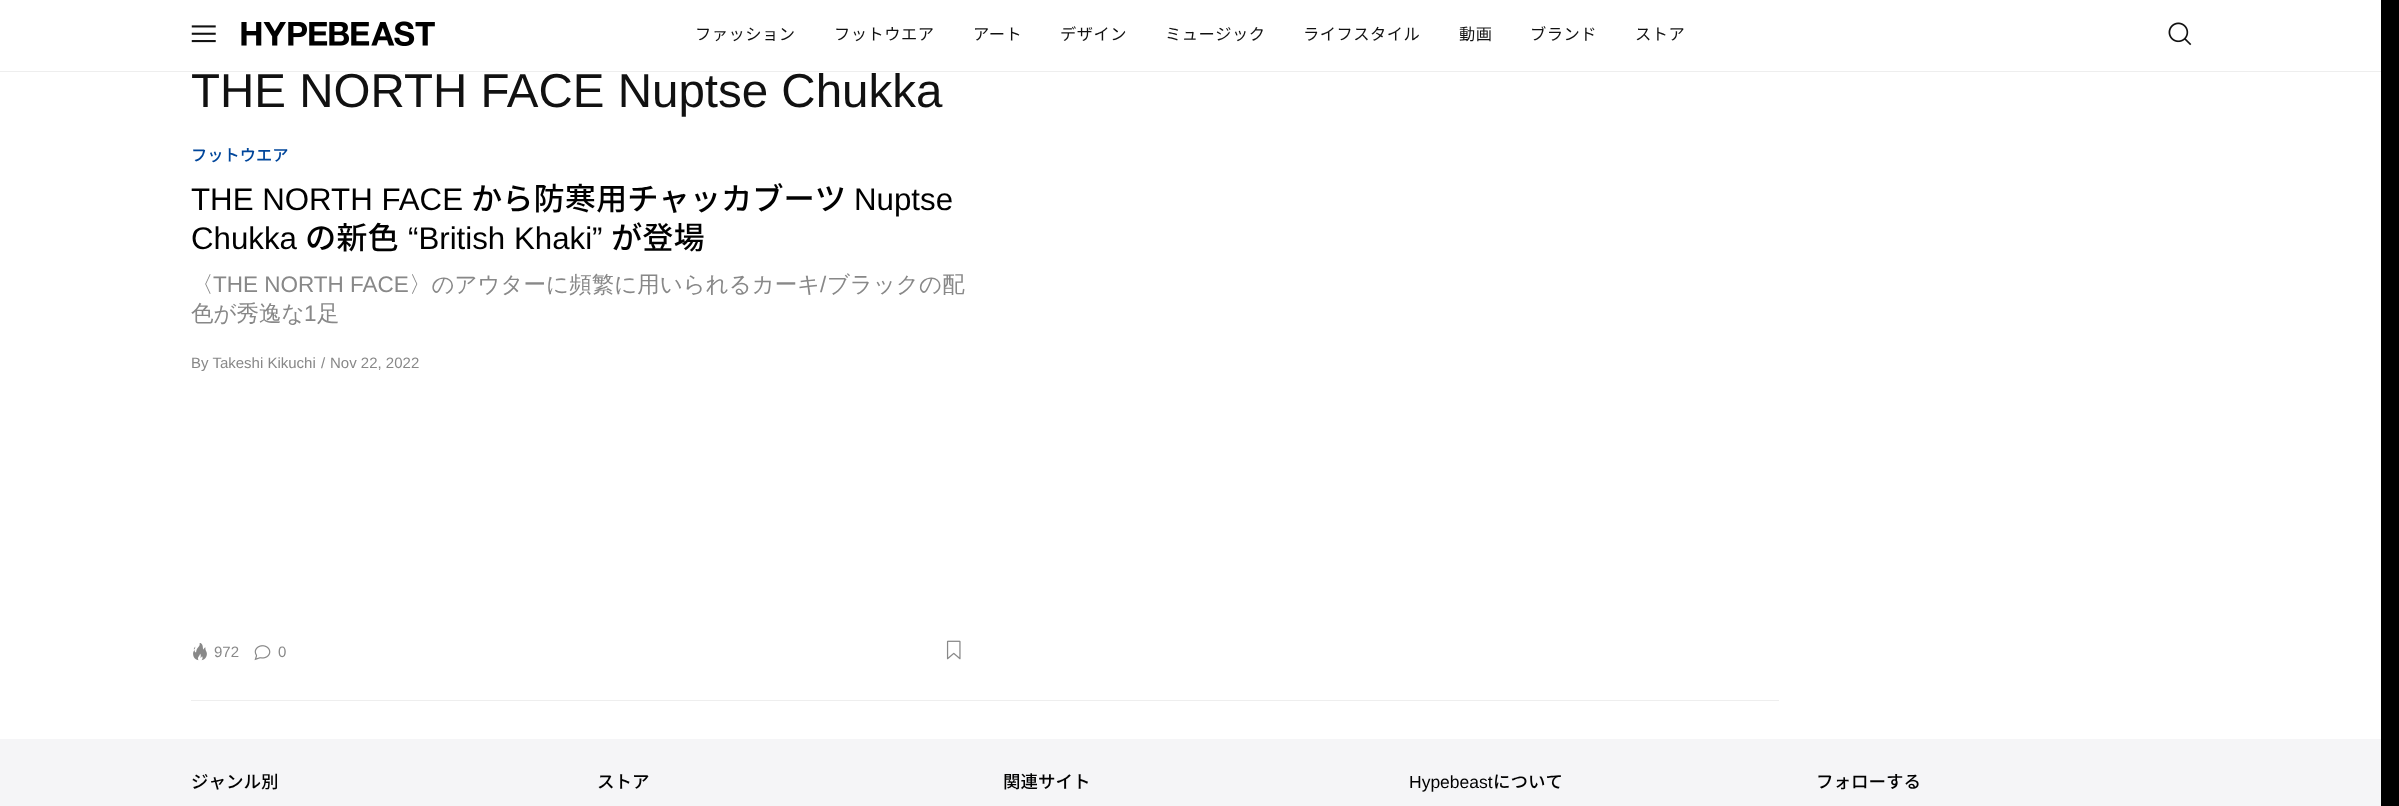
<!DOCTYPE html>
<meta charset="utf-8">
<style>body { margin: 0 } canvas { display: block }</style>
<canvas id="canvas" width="2399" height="806"></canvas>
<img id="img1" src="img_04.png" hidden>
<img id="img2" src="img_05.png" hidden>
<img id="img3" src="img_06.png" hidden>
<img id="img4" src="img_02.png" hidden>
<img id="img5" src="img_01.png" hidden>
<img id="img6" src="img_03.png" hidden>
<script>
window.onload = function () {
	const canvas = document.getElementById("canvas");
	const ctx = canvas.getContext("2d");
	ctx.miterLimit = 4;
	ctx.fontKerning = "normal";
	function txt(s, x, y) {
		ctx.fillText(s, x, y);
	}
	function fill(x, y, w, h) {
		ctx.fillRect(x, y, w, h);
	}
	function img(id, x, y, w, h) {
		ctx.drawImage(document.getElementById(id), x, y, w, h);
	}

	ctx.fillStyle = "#000000";
	fill(0, 0, 2399, 806);
	ctx.fillStyle = "#FFFFFF";
	fill(0, 73, 2381, 666);
	img("img1", 193, 643, 14, 18);
	img("img2", 254, 645, 17, 16);
	img("img3", 946, 640, 15, 20);
	ctx.fillStyle = "#EEEEEE";
	fill(191, 700, 1588, 1);
	ctx.fillStyle = "#F5F5F7";
	fill(0, 739, 2381, 67);
	ctx.font = "47.5px Liberation Sans";
	ctx.fillStyle = "#111111";
	txt("THE NORTH FACE Nuptse Chukka", 191, 107);
	ctx.fillStyle = "#FFFFFF";
	fill(0, 0, 2381, 73);
	ctx.letterSpacing = "0.5px";
	ctx.font = "16.25px Noto Sans JP";
	ctx.fillStyle = "#111111";
	txt("ストア", 1635, 40);
	txt("ブランド", 1530, 40);
	txt("動画", 1459, 40);
	txt("ライフスタイル", 1303, 40);
	txt("ミュージック", 1165, 40);
	txt("デザイン", 1060, 40);
	txt("アート", 973, 40);
	txt("フットウエア", 834, 40);
	txt("ファッション", 695, 40);
	img("img4", 2168, 22, 24, 24);
	img("img5", 191, 25, 25, 18);
	img("img6", 241, 21, 194, 25);
	ctx.fillStyle = "#EEEEEE";
	fill(0, 71, 2381, 1);
	ctx.letterSpacing = "0px";
	ctx.font = "500 16.25px Noto Sans JP";
	ctx.fillStyle = "#00469B";
	txt("フットウエア", 191, 161);
	ctx.font = "31.25px Liberation Sans";
	ctx.fillStyle = "#000000";
	txt("THE NORTH FACE", 191, 210);
	ctx.font = "500 31.25px Noto Sans JP";
	txt("から防寒用チャッカブーツ", 471, 210);
	ctx.font = "31.25px Liberation Sans";
	txt("Nuptse", 854, 210);
	txt("Chukka", 191, 249);
	ctx.font = "500 31.25px Noto Sans JP";
	txt("の新色", 305, 249);
	ctx.font = "31.25px Liberation Sans";
	txt("“British Khaki”", 408, 249);
	ctx.font = "500 31.25px Noto Sans JP";
	txt("が登場", 611, 249);
	ctx.font = "500 22.5px WenQuanYi Zen Hei";
	ctx.fillStyle = "#888888";
	txt("〈", 191, 292);
	ctx.font = "22.5px Liberation Sans";
	txt("THE NORTH FACE", 213, 292);
	ctx.font = "500 22.5px WenQuanYi Zen Hei";
	txt("〉のアウターに頻繁に用いられるカーキ", 409, 292);
	ctx.font = "22.5px Liberation Sans";
	txt("/", 820, 292);
	ctx.font = "500 22.5px WenQuanYi Zen Hei";
	txt("ブラックの配", 827, 292);
	txt("色が秀逸な", 191, 321);
	ctx.font = "22.5px Liberation Sans";
	txt("1", 304, 321);
	ctx.font = "500 22.5px WenQuanYi Zen Hei";
	txt("足", 317, 321);
	ctx.font = "15px Liberation Sans";
	txt("By Takeshi Kikuchi", 191, 368);
	txt("/", 321, 368);
	txt("Nov 22, 2022", 330, 368);
	txt("972", 214, 657);
	txt("0", 278, 657);
	ctx.font = "500 17.5px Noto Sans JP";
	ctx.fillStyle = "#000000";
	txt("ジャンル別", 191, 788);
	txt("ストア", 597, 788);
	txt("関連サイト", 1003, 788);
	ctx.font = "17.5px Liberation Sans";
	txt("Hypebeast", 1409, 788);
	ctx.font = "500 17.5px Noto Sans JP";
	txt("について", 1493, 788);
	txt("フォローする", 1816, 788);
};
</script>
